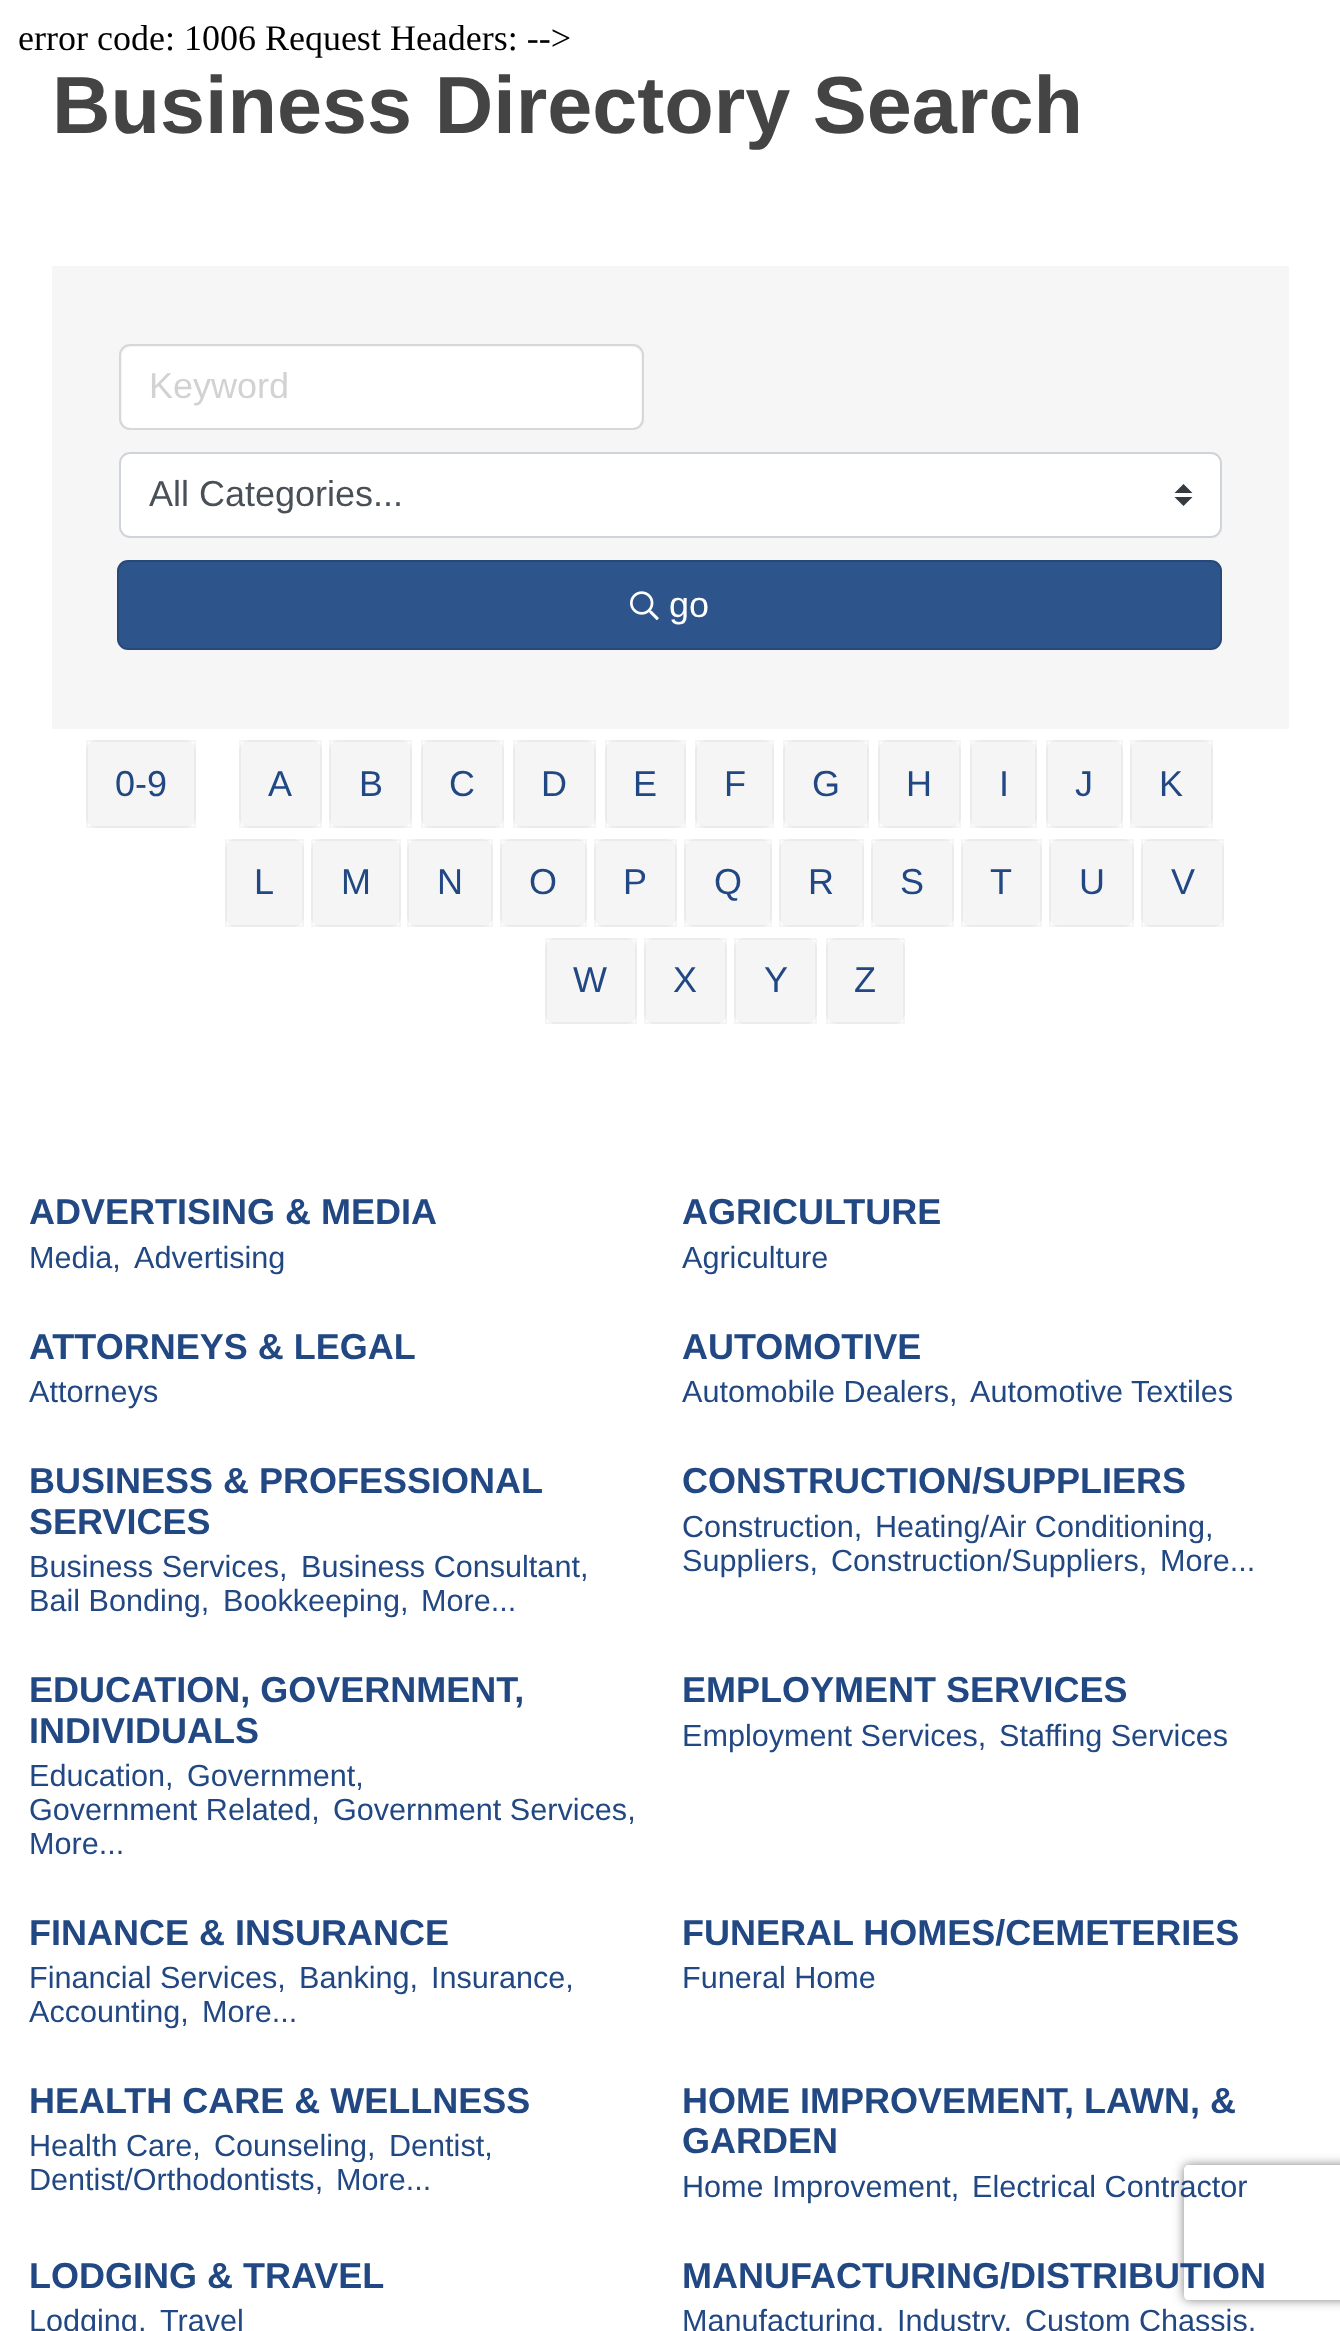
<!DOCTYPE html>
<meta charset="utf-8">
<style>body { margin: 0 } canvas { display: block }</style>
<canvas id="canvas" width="1340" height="2331"></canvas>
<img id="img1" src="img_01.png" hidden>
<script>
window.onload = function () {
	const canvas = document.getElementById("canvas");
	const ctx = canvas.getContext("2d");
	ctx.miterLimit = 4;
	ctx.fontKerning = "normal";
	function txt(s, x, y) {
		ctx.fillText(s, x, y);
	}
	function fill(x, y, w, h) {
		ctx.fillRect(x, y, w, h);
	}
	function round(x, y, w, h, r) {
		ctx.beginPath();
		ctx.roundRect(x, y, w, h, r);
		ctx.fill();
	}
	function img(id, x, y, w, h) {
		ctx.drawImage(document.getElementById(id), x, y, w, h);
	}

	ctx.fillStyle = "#FFFFFF";
	fill(0, 0, 1340, 2331);
	ctx.fillStyle = "#F6F6F6";
	fill(52, 266, 1237, 463);
	ctx.fillStyle = "#FFFFFF";
	round(122, 347, 519, 81, 9);
	ctx.beginPath();
	ctx.roundRect(120, 345, 523, 84, 10);
	ctx.strokeStyle = "#D7D7D7";
	ctx.lineWidth = 2;
	ctx.stroke();
	round(119, 452, 1103, 86, 11);
	ctx.fillStyle = "#343A40";
	ctx.beginPath();
	ctx.moveTo(1183.5, 484);
	ctx.lineTo(1174.5, 493);
	ctx.lineTo(1192.5, 493);
	ctx.closePath();
	ctx.moveTo(1183.5, 506);
	ctx.lineTo(1174.5, 497);
	ctx.lineTo(1192.5, 497);
	ctx.closePath();
	ctx.fill();
	ctx.beginPath();
	ctx.roundRect(120, 453, 1101, 84, 10);
	ctx.strokeStyle = "#CED4DA";
	ctx.stroke();
	ctx.fillStyle = "#2D548B";
	round(117, 560, 1105, 90, 11);
	ctx.beginPath();
	ctx.roundRect(118, 561, 1103, 88, 10);
	ctx.strokeStyle = "rgba(0, 0, 0, 0.12)";
	ctx.stroke();
	img("img1", 630, 591, 29, 30);
	ctx.fillStyle = "#F5F5F5";
	round(86, 740, 110, 88, 11);
	ctx.strokeStyle = "rgba(0, 0, 0, 0.04)";
	ctx.strokeRect(87, 741, 108, 86);
	round(239, 740, 83, 88, 11);
	ctx.strokeRect(240, 741, 81, 86);
	round(329, 740, 83, 88, 11);
	ctx.strokeRect(330, 741, 81, 86);
	round(421, 740, 83, 88, 11);
	ctx.strokeRect(422, 741, 81, 86);
	round(513, 740, 83, 88, 11);
	ctx.strokeRect(514, 741, 81, 86);
	round(605, 740, 81, 88, 11);
	ctx.strokeRect(606, 741, 79, 86);
	round(695, 740, 79, 88, 11);
	ctx.strokeRect(696, 741, 77, 86);
	round(783, 740, 86, 88, 11);
	ctx.strokeRect(784, 741, 84, 86);
	round(878, 740, 83, 88, 11);
	ctx.strokeRect(879, 741, 81, 86);
	round(970, 740, 67, 88, 11);
	ctx.strokeRect(971, 741, 65, 86);
	round(1046, 740, 77, 88, 11);
	ctx.strokeRect(1047, 741, 75, 86);
	round(1130, 740, 83, 88, 11);
	ctx.strokeRect(1131, 741, 81, 86);
	round(225, 839, 79, 88, 11);
	ctx.strokeRect(226, 840, 77, 86);
	round(311, 839, 90, 88, 11);
	ctx.strokeRect(312, 840, 88, 86);
	round(407, 839, 86, 88, 11);
	ctx.strokeRect(408, 840, 84, 86);
	round(500, 839, 87, 88, 11);
	ctx.strokeRect(501, 840, 85, 86);
	round(594, 839, 83, 88, 11);
	ctx.strokeRect(595, 840, 81, 86);
	round(684, 839, 88, 88, 11);
	ctx.strokeRect(685, 840, 86, 86);
	round(779, 839, 85, 88, 11);
	ctx.strokeRect(780, 840, 83, 86);
	round(871, 839, 83, 88, 11);
	ctx.strokeRect(872, 840, 81, 86);
	round(961, 839, 81, 88, 11);
	ctx.strokeRect(962, 840, 79, 86);
	round(1049, 839, 85, 88, 11);
	ctx.strokeRect(1050, 840, 83, 86);
	round(1141, 839, 83, 88, 11);
	ctx.strokeRect(1142, 840, 81, 86);
	round(545, 938, 92, 86, 11);
	ctx.strokeRect(546, 939, 90, 84);
	round(644, 938, 83, 86, 11);
	ctx.strokeRect(645, 939, 81, 84);
	round(734, 938, 83, 86, 11);
	ctx.strokeRect(735, 939, 81, 84);
	round(826, 938, 79, 86, 11);
	ctx.strokeRect(827, 939, 77, 84);
	ctx.save();
	ctx.beginPath();
	ctx.moveTo(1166, 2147);
	ctx.lineTo(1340, 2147);
	ctx.lineTo(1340, 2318);
	ctx.lineTo(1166, 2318);
	ctx.closePath();
	ctx.moveTo(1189, 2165);
	ctx.lineTo(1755, 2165);
	ctx.bezierCurveTo(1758, 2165, 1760, 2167, 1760, 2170);
	ctx.lineTo(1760, 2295);
	ctx.bezierCurveTo(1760, 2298, 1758, 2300, 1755, 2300);
	ctx.lineTo(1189, 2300);
	ctx.bezierCurveTo(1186, 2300, 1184, 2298, 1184, 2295);
	ctx.lineTo(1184, 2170);
	ctx.bezierCurveTo(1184, 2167, 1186, 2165, 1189, 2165);
	ctx.closePath();
	ctx.clip("evenodd");
	ctx.fillStyle = "#808080";
	ctx.filter = "blur(5.5px)";
	ctx.beginPath();
	ctx.roundRect(1184, 2165, 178, 135, 5);
	ctx.fill();
	ctx.filter = "none";
	ctx.restore();
	ctx.font = "36px Liberation Serif";
	ctx.fillStyle = "#000000";
	txt("error code: 1006 Request Headers: -->", 18, 50);
	ctx.font = "bold 81px Liberation Sans";
	ctx.fillStyle = "#444444";
	txt("Business Directory Search", 52, 133);
	ctx.font = "36px Liberation Sans";
	ctx.fillStyle = "#D2D2D2";
	txt("Keyword", 149, 398);
	ctx.fillStyle = "#495057";
	txt("All Categories...", 149, 506);
	ctx.fillStyle = "#FFFFFF";
	txt("go", 669, 617);
	ctx.fillStyle = "#224884";
	txt("0-9", 115, 796);
	txt("A", 268, 796);
	txt("B", 359, 796);
	txt("C", 449, 796);
	txt("D", 541, 796);
	txt("E", 633, 796);
	txt("F", 724, 796);
	txt("G", 812, 796);
	txt("H", 906, 796);
	txt("I", 999, 796);
	txt("J", 1075, 796);
	txt("K", 1159, 796);
	txt("L", 254, 894);
	txt("M", 341, 894);
	txt("N", 437, 894);
	txt("O", 529, 894);
	txt("P", 623, 894);
	txt("Q", 714, 894);
	txt("R", 808, 894);
	txt("S", 900, 894);
	txt("T", 990, 894);
	txt("U", 1079, 894);
	txt("V", 1171, 894);
	txt("W", 573, 992);
	txt("X", 673, 992);
	txt("Y", 764, 992);
	txt("Z", 854, 992);
	ctx.font = "bold 36px Liberation Sans";
	txt("ADVERTISING & MEDIA", 29, 1224);
	ctx.font = "30.6px Liberation Sans";
	txt("Media,", 29, 1268);
	txt("Advertising", 134, 1268);
	ctx.font = "bold 36px Liberation Sans";
	txt("AGRICULTURE", 682, 1224);
	ctx.font = "30.6px Liberation Sans";
	txt("Agriculture", 682, 1268);
	ctx.font = "bold 36px Liberation Sans";
	txt("ATTORNEYS & LEGAL", 29, 1359);
	ctx.font = "30.6px Liberation Sans";
	txt("Attorneys", 29, 1402);
	ctx.font = "bold 36px Liberation Sans";
	txt("AUTOMOTIVE", 682, 1359);
	ctx.font = "30.6px Liberation Sans";
	txt("Automobile Dealers,", 682, 1402);
	txt("Automotive Textiles", 970, 1402);
	ctx.font = "bold 36px Liberation Sans";
	txt("BUSINESS & PROFESSIONAL", 29, 1493);
	txt("SERVICES", 29, 1534);
	ctx.font = "30.6px Liberation Sans";
	txt("Business Services,", 29, 1577);
	txt("Business Consultant,", 301, 1577);
	txt("Bail Bonding,", 29, 1611);
	txt("Bookkeeping,", 223, 1611);
	txt("More...", 421, 1611);
	ctx.font = "bold 36px Liberation Sans";
	txt("CONSTRUCTION/SUPPLIERS", 682, 1493);
	ctx.font = "30.6px Liberation Sans";
	txt("Construction,", 682, 1537);
	txt("Heating/Air Conditioning,", 875, 1537);
	txt("Suppliers,", 682, 1571);
	txt("Construction/Suppliers,", 831, 1571);
	txt("More...", 1160, 1571);
	ctx.font = "bold 36px Liberation Sans";
	txt("EDUCATION, GOVERNMENT,", 29, 1702);
	txt("INDIVIDUALS", 29, 1743);
	ctx.font = "30.6px Liberation Sans";
	txt("Education,", 29, 1786);
	txt("Government,", 187, 1786);
	txt("Government Related,", 29, 1820);
	txt("Government Services,", 333, 1820);
	txt("More...", 29, 1854);
	ctx.font = "bold 36px Liberation Sans";
	txt("EMPLOYMENT SERVICES", 682, 1702);
	ctx.font = "30.6px Liberation Sans";
	txt("Employment Services,", 682, 1746);
	txt("Staffing Services", 999, 1746);
	ctx.font = "bold 36px Liberation Sans";
	txt("FINANCE & INSURANCE", 29, 1945);
	ctx.font = "30.6px Liberation Sans";
	txt("Financial Services,", 29, 1988);
	txt("Banking,", 299, 1988);
	txt("Insurance,", 431, 1988);
	txt("Accounting,", 29, 2022);
	txt("More...", 202, 2022);
	ctx.font = "bold 36px Liberation Sans";
	txt("FUNERAL HOMES/CEMETERIES", 682, 1945);
	ctx.font = "30.6px Liberation Sans";
	txt("Funeral Home", 682, 1988);
	ctx.font = "bold 36px Liberation Sans";
	txt("HEALTH CARE & WELLNESS", 29, 2113);
	ctx.font = "30.6px Liberation Sans";
	txt("Health Care,", 29, 2156);
	txt("Counseling,", 214, 2156);
	txt("Dentist,", 389, 2156);
	txt("Dentist/Orthodontists,", 29, 2190);
	txt("More...", 336, 2190);
	ctx.font = "bold 36px Liberation Sans";
	txt("HOME IMPROVEMENT, LAWN, &", 682, 2113);
	txt("GARDEN", 682, 2153);
	ctx.font = "30.6px Liberation Sans";
	txt("Home Improvement,", 682, 2197);
	txt("Electrical Contractor", 972, 2197);
	ctx.font = "bold 36px Liberation Sans";
	txt("LODGING & TRAVEL", 29, 2288);
	ctx.font = "30.6px Liberation Sans";
	txt("Lodging,", 29, 2331);
	txt("Travel", 160, 2331);
	ctx.font = "bold 36px Liberation Sans";
	txt("MANUFACTURING/DISTRIBUTION", 682, 2288);
	ctx.font = "30.6px Liberation Sans";
	txt("Manufacturing,", 682, 2331);
	txt("Industry,", 897, 2331);
	txt("Custom Chassis,", 1025, 2331);
};
</script>
